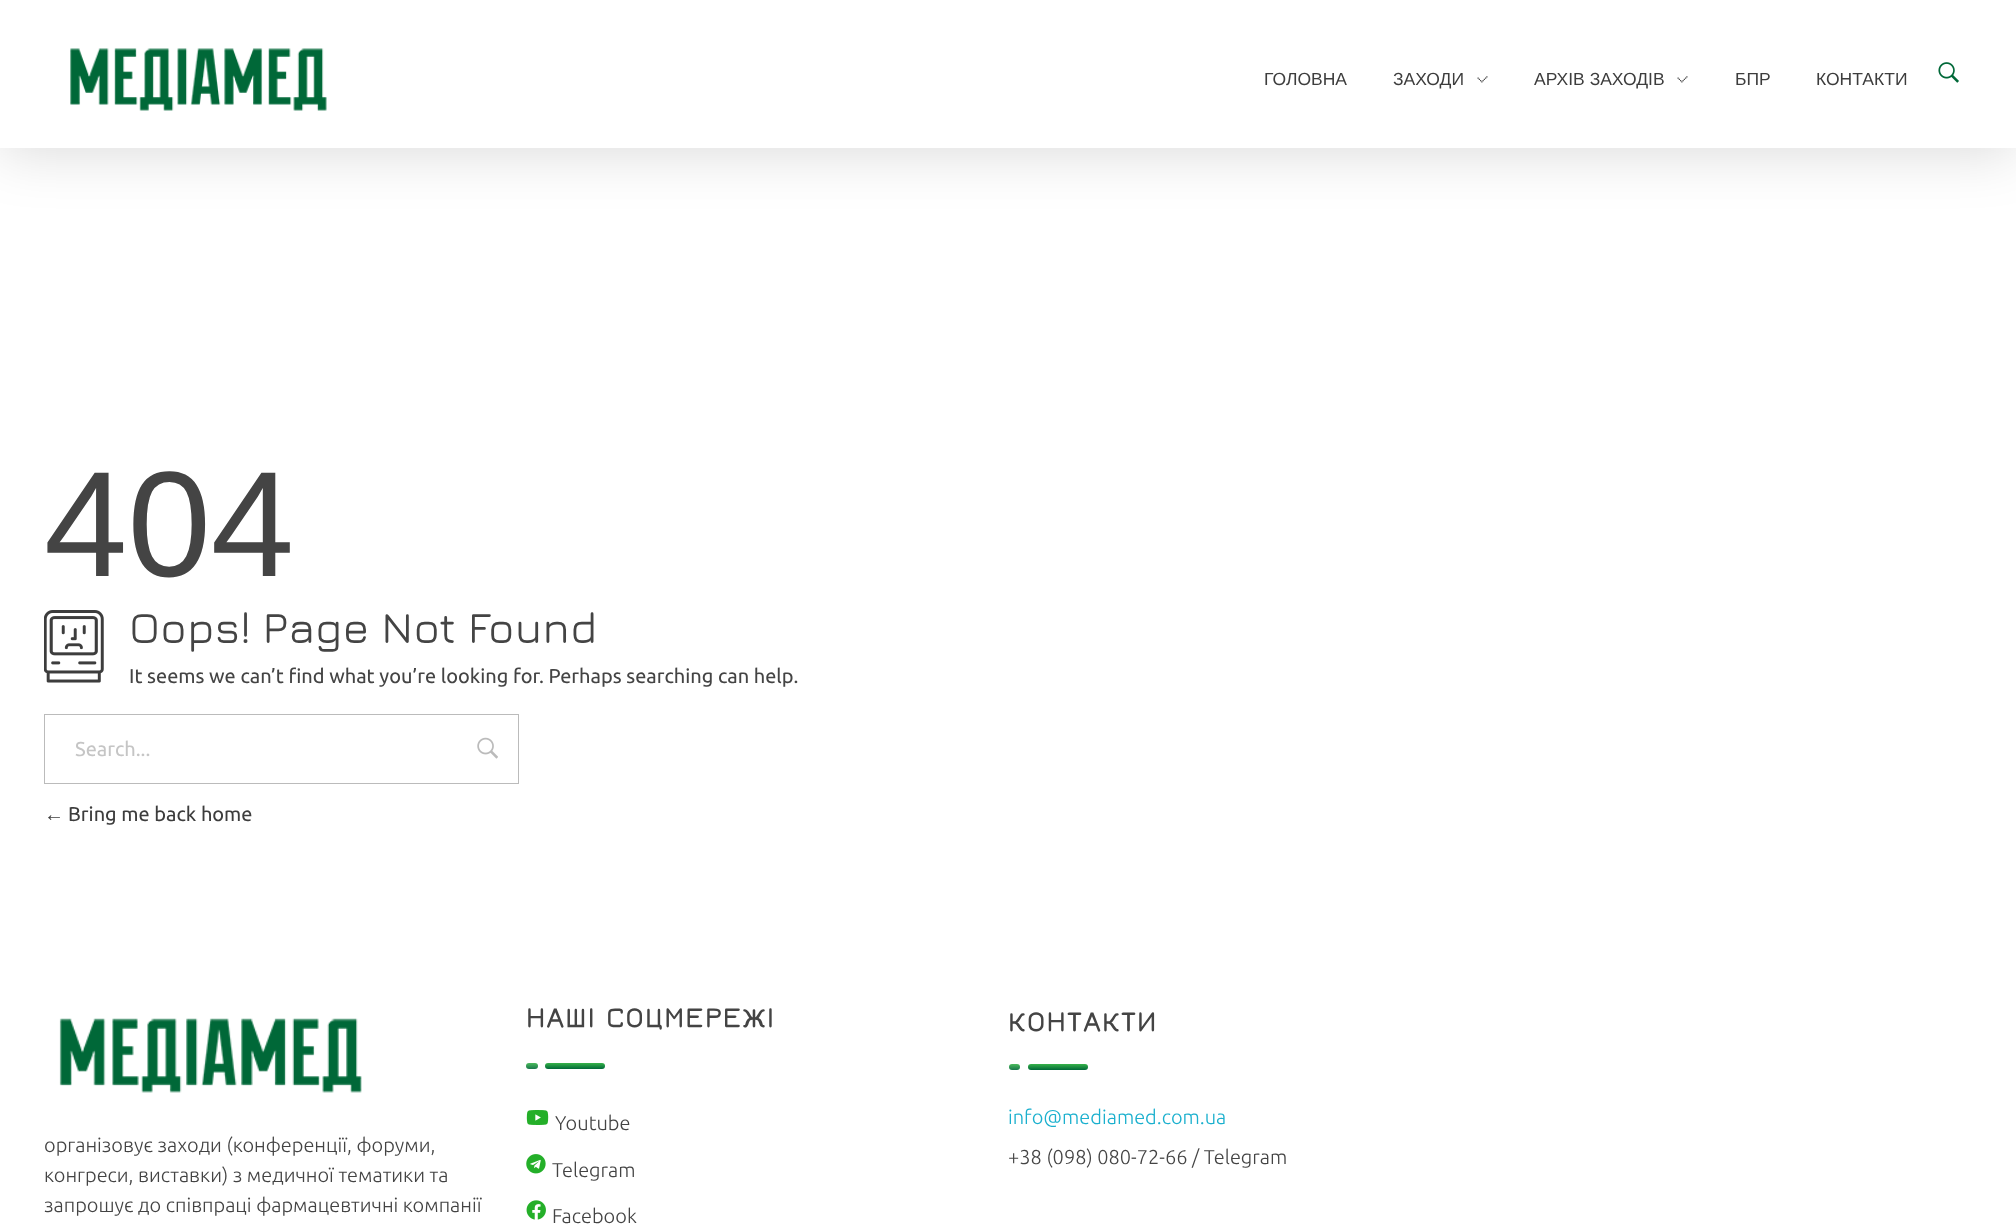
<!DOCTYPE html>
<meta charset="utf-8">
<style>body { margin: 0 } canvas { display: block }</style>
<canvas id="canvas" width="2016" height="1229"></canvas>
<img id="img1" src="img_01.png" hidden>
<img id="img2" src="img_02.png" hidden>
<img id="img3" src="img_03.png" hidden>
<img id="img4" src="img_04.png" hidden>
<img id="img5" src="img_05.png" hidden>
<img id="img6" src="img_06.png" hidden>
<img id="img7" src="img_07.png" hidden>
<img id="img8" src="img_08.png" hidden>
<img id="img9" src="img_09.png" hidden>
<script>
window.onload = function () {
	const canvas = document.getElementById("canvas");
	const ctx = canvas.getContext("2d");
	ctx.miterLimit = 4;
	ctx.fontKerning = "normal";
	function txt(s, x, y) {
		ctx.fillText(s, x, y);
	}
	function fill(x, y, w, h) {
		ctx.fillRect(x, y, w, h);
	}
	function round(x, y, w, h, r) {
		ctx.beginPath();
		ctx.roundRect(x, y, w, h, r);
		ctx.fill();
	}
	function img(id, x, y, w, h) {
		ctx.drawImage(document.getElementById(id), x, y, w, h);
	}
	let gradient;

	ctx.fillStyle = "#FFFFFF";
	fill(0, 0, 2016, 1229);
	ctx.fillStyle = "rgba(0, 0, 0, 0.14)";
	ctx.filter = "blur(27.5px)";
	ctx.beginPath();
	ctx.rect(0, 5, 2016, 148);
	ctx.fill();
	ctx.filter = "none";
	ctx.fillStyle = "#FFFFFF";
	fill(0, 0, 2016, 148);
	img("img1", 70, 48, 257, 63);
	img("img2", 1477, 76, 11, 7);
	img("img2", 1677, 76, 11, 7);
	img("img3", 1938, 62, 21, 21);
	img("img4", 44, 610, 60, 73);
	ctx.strokeStyle = "#BBBBBB";
	ctx.strokeRect(44.5, 714.5, 474, 69);
	img("img5", 477, 737, 21, 22);
	gradient = ctx.createLinearGradient(532, 1063, 532, 1069);
	gradient.addColorStop(0, "#4BBB5C");
	gradient.addColorStop(1, "#1A774C");
	ctx.fillStyle = gradient;
	round(526, 1063, 12, 6, 3);
	gradient = ctx.createLinearGradient(575, 1063, 575, 1069);
	gradient.addColorStop(0, "#37B34A");
	gradient.addColorStop(1, "#006838");
	ctx.fillStyle = gradient;
	round(545, 1063, 60, 6, 3);
	img("img6", 526, 1110, 23, 15);
	img("img7", 526, 1154, 20, 20);
	img("img8", 526, 1200, 20, 20);
	gradient = ctx.createLinearGradient(1014, 1064, 1014, 1070);
	gradient.addColorStop(0, "#4BBB5C");
	gradient.addColorStop(1, "#1A774C");
	ctx.fillStyle = gradient;
	round(1009, 1064, 11, 6, 3);
	gradient = ctx.createLinearGradient(1058, 1064, 1058, 1070);
	gradient.addColorStop(0, "#37B34A");
	gradient.addColorStop(1, "#006838");
	ctx.fillStyle = gradient;
	round(1028, 1064, 60, 6, 3);
	img("img9", 59, 1018, 303, 75);
	ctx.font = "17.5px Liberation Sans";
	ctx.fillStyle = "#3D3D3D";
	txt("ГОЛОВНА", 1264, 85);
	txt("ЗАХОДИ", 1393, 85);
	txt("АРХІВ ЗАХОДІВ", 1534, 85);
	txt("БПР", 1735, 85);
	txt("КОНТАКТИ", 1816, 85);
	ctx.font = "150px Liberation Sans";
	ctx.fillStyle = "#444444";
	txt("404", 44, 576);
	ctx.font = "500 44px Jura";
	txt("Oops! Page Not Found", 129, 643);
	ctx.font = "20px Ubuntu";
	txt("It seems we can’t find what you’re looking for. Perhaps searching can help.", 129, 683);
	ctx.fillStyle = "#C5C5C5";
	txt("Search...", 75, 756);
	ctx.font = "20px Liberation Sans";
	ctx.fillStyle = "#3D3D3D";
	txt("←", 44, 821);
	ctx.font = "20px Ubuntu";
	txt("Bring me back home", 68, 821);
	ctx.letterSpacing = "1.25px";
	ctx.font = "bold 28.75px Jura";
	ctx.fillStyle = "#444444";
	txt("НАШІ СОЦМЕРЕЖІ", 526, 1027);
	ctx.letterSpacing = "0px";
	ctx.font = "300 20px Ubuntu";
	txt("Youtube", 555, 1130);
	txt("Telegram", 552, 1177);
	txt("Facebook", 552, 1223);
	ctx.letterSpacing = "1.25px";
	ctx.font = "bold 28.75px Jura";
	txt("КОНТАКТИ", 1008, 1031);
	ctx.letterSpacing = "0px";
	ctx.font = "300 20px Ubuntu";
	ctx.fillStyle = "#1BB0CE";
	txt("info@mediamed.com.ua", 1008, 1124);
	ctx.fillStyle = "#444444";
	txt("+38 (098) 080-72-66 / Telegram", 1008, 1164);
	txt("організовує заходи (конференції, форуми,", 44, 1152);
	txt("конгреси, виставки) з медичної тематики та", 44, 1182);
	txt("запрошує до співпраці фармацевтичні компанії", 44, 1212);
};
</script>
